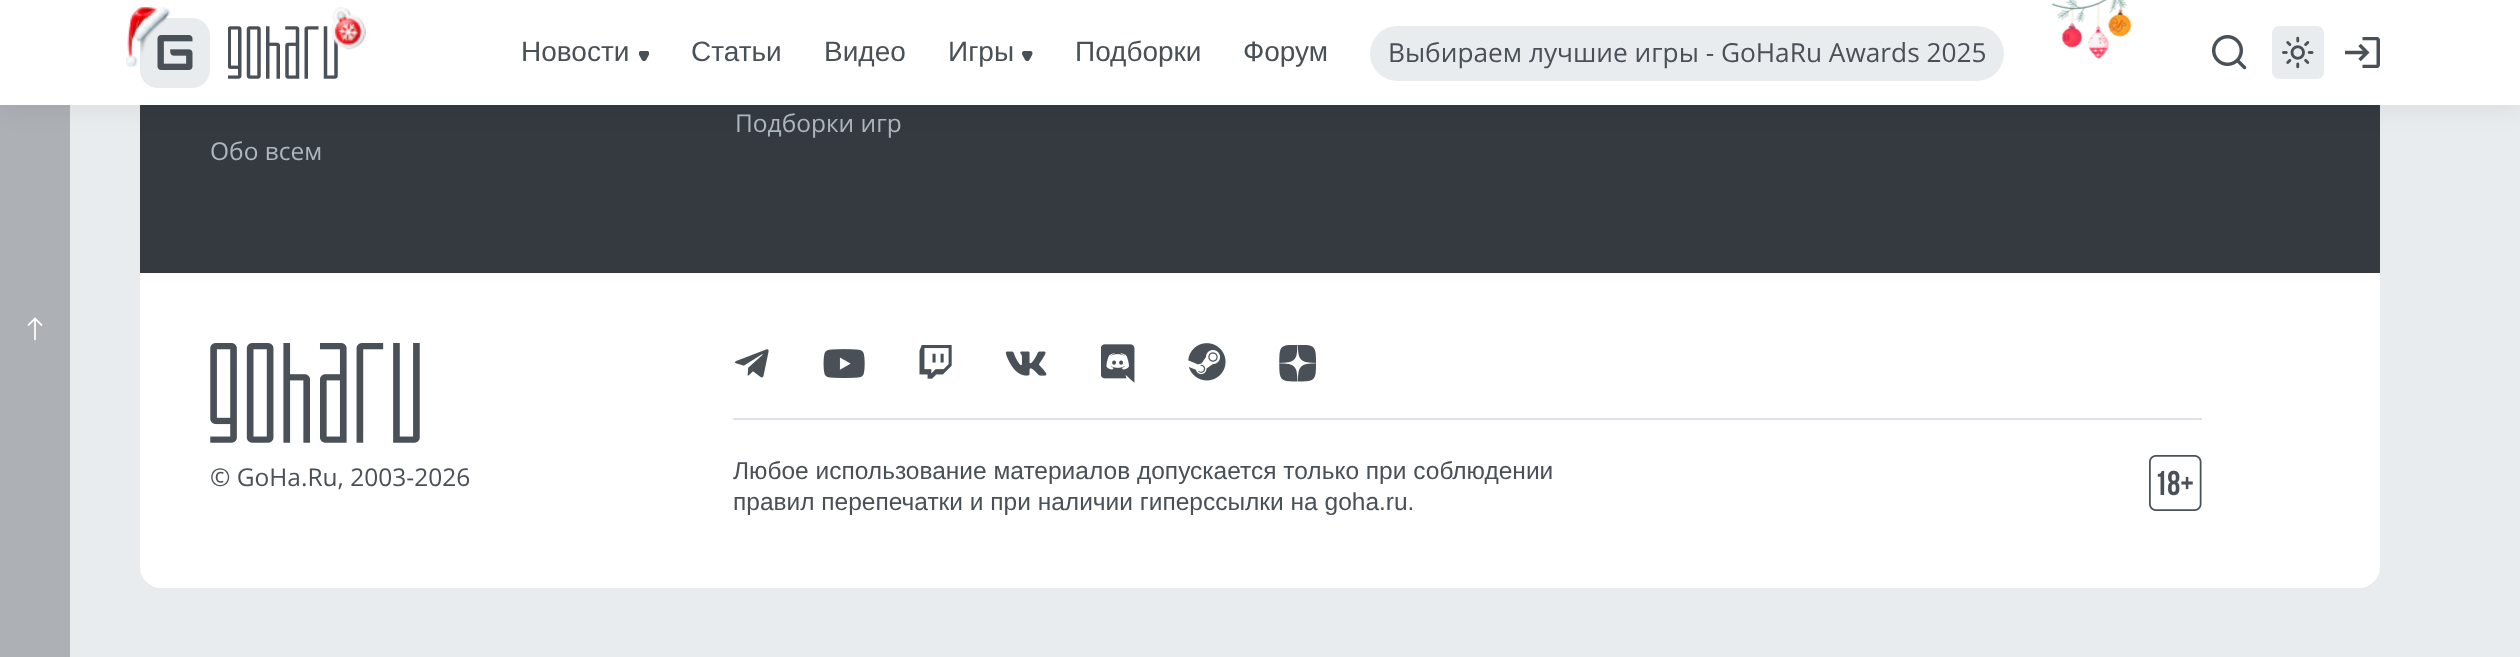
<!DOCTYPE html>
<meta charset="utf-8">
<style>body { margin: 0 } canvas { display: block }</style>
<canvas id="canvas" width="2520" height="657"></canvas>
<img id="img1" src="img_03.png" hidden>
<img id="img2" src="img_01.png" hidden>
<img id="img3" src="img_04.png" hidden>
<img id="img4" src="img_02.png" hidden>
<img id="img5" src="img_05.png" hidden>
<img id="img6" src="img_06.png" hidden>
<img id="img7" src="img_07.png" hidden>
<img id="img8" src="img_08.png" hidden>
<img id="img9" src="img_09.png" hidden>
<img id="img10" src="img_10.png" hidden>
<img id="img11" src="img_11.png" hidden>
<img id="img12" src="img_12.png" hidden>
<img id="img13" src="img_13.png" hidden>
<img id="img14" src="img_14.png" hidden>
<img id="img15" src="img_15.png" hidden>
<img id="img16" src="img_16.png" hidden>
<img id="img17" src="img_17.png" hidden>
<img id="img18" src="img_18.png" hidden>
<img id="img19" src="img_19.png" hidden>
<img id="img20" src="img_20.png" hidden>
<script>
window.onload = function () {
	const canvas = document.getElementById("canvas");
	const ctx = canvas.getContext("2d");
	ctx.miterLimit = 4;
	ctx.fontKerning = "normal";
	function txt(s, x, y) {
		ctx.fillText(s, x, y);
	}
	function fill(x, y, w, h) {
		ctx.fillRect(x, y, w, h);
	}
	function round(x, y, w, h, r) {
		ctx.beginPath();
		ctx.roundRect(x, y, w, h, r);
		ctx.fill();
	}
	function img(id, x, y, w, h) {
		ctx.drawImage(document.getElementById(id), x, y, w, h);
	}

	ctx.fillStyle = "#E9ECEF";
	fill(0, 0, 2520, 657);
	ctx.fillStyle = "#ADB0B4";
	fill(0, 105, 70, 552);
	ctx.fillStyle = "#343A40";
	fill(140, 105, 2240, 168);
	ctx.fillStyle = "rgba(0, 0, 0, 0.05)";
	ctx.filter = "blur(10.5px)";
	ctx.beginPath();
	ctx.rect(0, 7, 2520, 105);
	ctx.fill();
	ctx.filter = "none";
	ctx.fillStyle = "#FFFFFF";
	fill(0, 0, 2520, 105);
	img("img1", 140, 18, 70, 70);
	img("img2", 126, 7, 44, 60);
	img("img3", 228, 26, 110, 53);
	img("img4", 331, 7, 35, 43);
	img("img5", 639, 51, 10, 10);
	img("img6", 1022, 51, 11, 10);
	ctx.fillStyle = "#E9ECEF";
	round(1370, 26, 634, 55, 27.5);
	img("img7", 2051, 0, 81, 59);
	img("img8", 2212, 35, 35, 35);
	round(2272, 26, 52, 53, 7);
	img("img9", 2282, 36, 32, 33);
	img("img10", 2345, 37, 35, 31);
	img("img11", 27, 317, 16, 24);
	ctx.fillStyle = "#FFFFFF";
	ctx.beginPath();
	ctx.roundRect(140, 273, 2240, 315, [0, 0, 21, 21]);
	ctx.fill();
	img("img12", 210, 343, 210, 100);
	img("img13", 735, 349, 34, 29);
	img("img14", 823, 349, 42, 29);
	img("img15", 919, 345, 33, 34);
	img("img16", 1005, 351, 42, 25);
	img("img17", 1101, 344, 34, 39);
	img("img18", 1188, 343, 38, 38);
	img("img19", 1279, 345, 37, 37);
	ctx.fillStyle = "#DEE2E6";
	fill(733, 418, 1469, 2);
	img("img20", 2149, 455, 53, 56);
	ctx.font = "28px Liberation Sans";
	ctx.fillStyle = "#495057";
	txt("Новости", 521, 61);
	txt("Статьи", 691, 61);
	txt("Видео", 824, 61);
	txt("Игры", 948, 61);
	txt("Подборки", 1075, 61);
	txt("Форум", 1243, 61);
	ctx.font = "26.25px Open Sans";
	txt("Выбираем лучшие игры - GoHaRu Awards 2025", 1388, 62);
	ctx.font = "24.5px Open Sans";
	ctx.fillStyle = "#ADB5BD";
	txt("Подборки игр", 735, 132);
	txt("Обо всем", 210, 160);
	ctx.fillStyle = "#495057";
	txt("© GoHa.Ru, 2003-2026", 210, 486);
	ctx.font = "24.5px Liberation Sans";
	txt("Любое использование материалов допускается только при соблюдении", 733, 479);
	txt("правил перепечатки и при наличии гиперссылки на goha.ru.", 733, 510);
};
</script>
